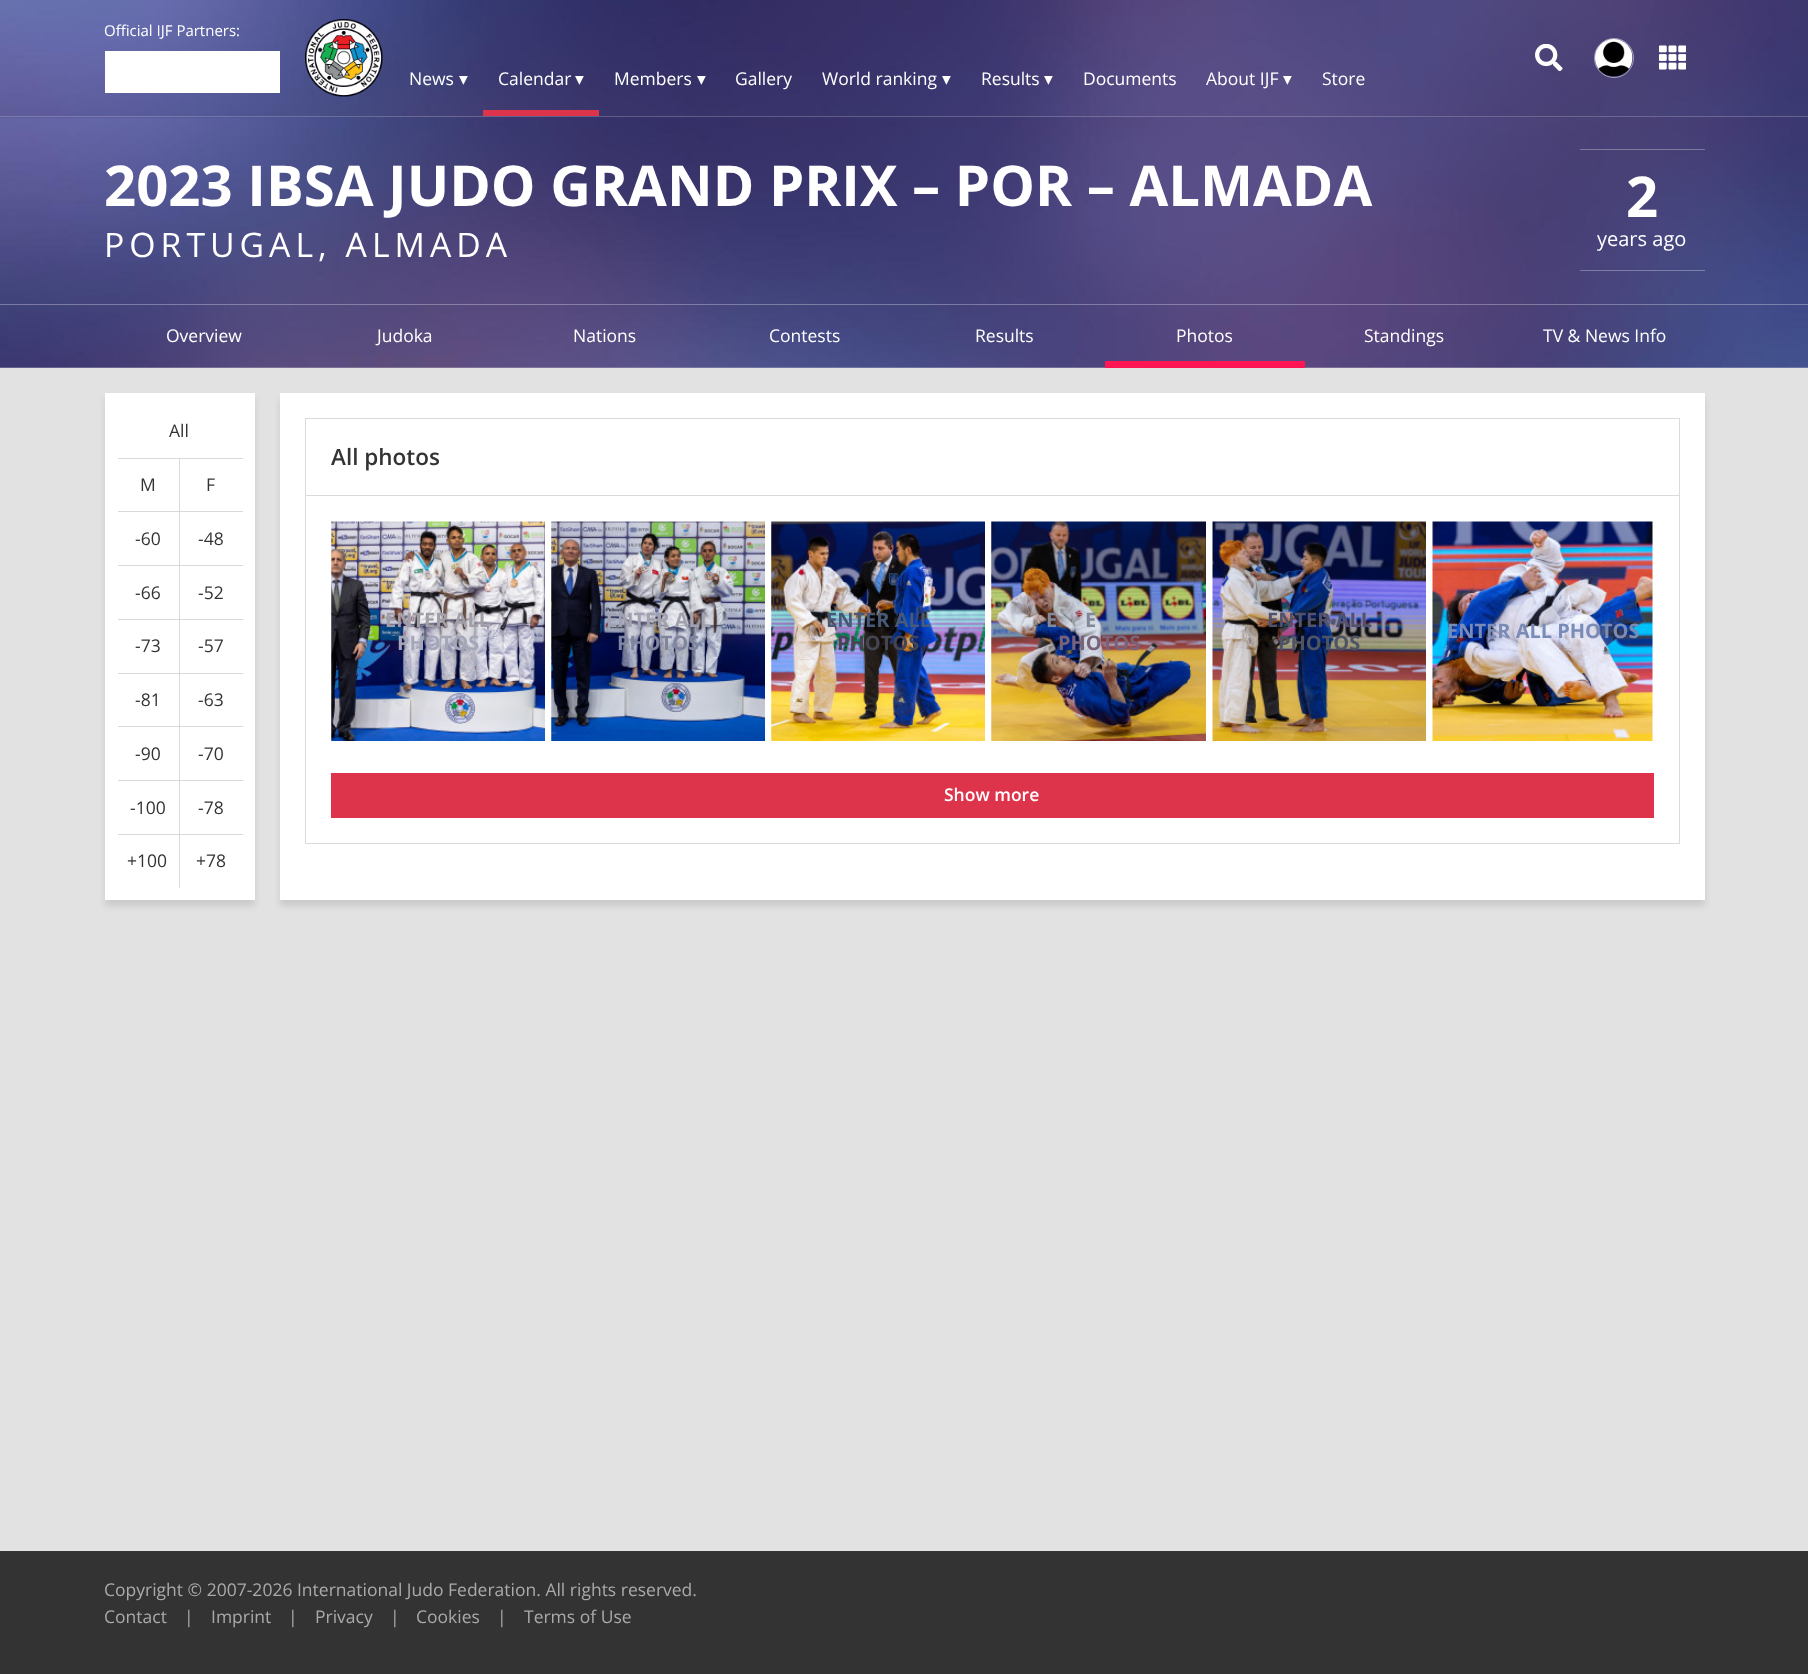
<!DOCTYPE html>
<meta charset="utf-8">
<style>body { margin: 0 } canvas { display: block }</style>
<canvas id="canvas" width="1808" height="1674"></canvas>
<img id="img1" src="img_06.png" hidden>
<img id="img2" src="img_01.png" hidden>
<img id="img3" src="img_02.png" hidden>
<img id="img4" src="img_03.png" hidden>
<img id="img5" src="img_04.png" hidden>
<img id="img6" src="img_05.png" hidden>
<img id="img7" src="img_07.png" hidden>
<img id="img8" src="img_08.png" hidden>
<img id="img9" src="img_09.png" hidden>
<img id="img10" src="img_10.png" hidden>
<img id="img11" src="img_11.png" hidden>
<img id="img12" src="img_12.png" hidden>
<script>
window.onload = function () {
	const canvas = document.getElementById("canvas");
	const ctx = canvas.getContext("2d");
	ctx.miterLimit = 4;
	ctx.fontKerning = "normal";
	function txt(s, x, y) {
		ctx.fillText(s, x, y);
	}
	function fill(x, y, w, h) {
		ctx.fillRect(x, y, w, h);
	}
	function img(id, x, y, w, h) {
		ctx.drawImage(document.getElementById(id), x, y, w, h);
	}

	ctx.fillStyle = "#E2E2E2";
	fill(0, 0, 1808, 1674);
	img("img1", 0, 117, 1808, 251);
	img("img2", 0, 0, 1808, 118);
	ctx.fillStyle = "rgba(255, 255, 255, 0.2)";
	fill(0, 116, 1808, 1);
	ctx.fillStyle = "#FFFFFF";
	fill(105, 51, 175, 42);
	img("img3", 305, 19, 78, 78);
	img("img4", 1535, 44, 28, 27);
	ctx.beginPath();
	ctx.arc(1614, 58, 19.5, 0, Math.PI * 2);
	ctx.strokeStyle = "rgba(255, 255, 255, 0.5)";
	ctx.stroke();
	img("img5", 1595, 39, 38, 38);
	img("img6", 1659, 45, 27, 25);
	ctx.fillStyle = "#DD344C";
	fill(483, 110, 116, 6);
	ctx.fillStyle = "rgba(255, 255, 255, 0.3)";
	fill(1580, 149, 125, 1);
	fill(1580, 270, 125, 1);
	fill(0, 304, 1808, 1);
	ctx.fillStyle = "#FF1553";
	fill(1105, 361, 200, 7);
	ctx.fillStyle = "rgba(0, 0, 0, 0.1)";
	ctx.filter = "blur(3px)";
	ctx.beginPath();
	ctx.rect(105, 399, 150, 507);
	ctx.fill();
	ctx.filter = "none";
	ctx.fillStyle = "#FFFFFF";
	fill(105, 393, 150, 507);
	ctx.fillStyle = "#D9D9D9";
	fill(118, 458, 125, 1);
	fill(179, 459, 1, 429);
	fill(118, 511, 125, 1);
	fill(118, 565, 125, 1);
	fill(118, 619, 125, 1);
	fill(118, 673, 125, 1);
	fill(118, 726, 125, 1);
	fill(118, 780, 125, 1);
	fill(118, 834, 125, 1);
	ctx.fillStyle = "rgba(0, 0, 0, 0.1)";
	ctx.filter = "blur(3px)";
	ctx.beginPath();
	ctx.rect(280, 399, 1425, 507);
	ctx.fill();
	ctx.filter = "none";
	ctx.fillStyle = "#FFFFFF";
	fill(280, 393, 1425, 507);
	ctx.strokeStyle = "#DADADA";
	ctx.strokeRect(305.5, 418.5, 1374, 425);
	ctx.fillStyle = "#DADADA";
	fill(306, 495, 1373, 1);
	img("img7", 331, 521, 214, 220);
	img("img8", 551, 521, 214, 220);
	img("img9", 771, 521, 214, 220);
	img("img10", 991, 521, 215, 220);
	img("img11", 1212, 521, 214, 221);
	ctx.fillStyle = "#FFFFFF";
	fill(1213, 741, 220, 1);
	img("img12", 1432, 521, 221, 221);
	fill(1433, 741, 220, 1);
	ctx.fillStyle = "#DD344C";
	fill(331, 773, 1323, 45);
	ctx.fillStyle = "#333333";
	fill(0, 1551, 1808, 123);
	ctx.font = "15px Open Sans";
	ctx.fillStyle = "#FFFFFF";
	txt("Official IJF Partners:", 104, 36);
	ctx.font = "17.5px Open Sans";
	txt("News", 409, 85);
	ctx.font = "17.5px DejaVu Sans";
	txt("▾", 459, 85);
	ctx.font = "17.5px Open Sans";
	txt("Calendar", 498, 85);
	ctx.font = "17.5px DejaVu Sans";
	txt("▾", 575, 85);
	ctx.font = "17.5px Open Sans";
	txt("Members", 614, 85);
	ctx.font = "17.5px DejaVu Sans";
	txt("▾", 697, 85);
	ctx.font = "17.5px Open Sans";
	txt("Gallery", 735, 85);
	txt("World ranking", 822, 85);
	ctx.font = "17.5px DejaVu Sans";
	txt("▾", 942, 85);
	ctx.font = "17.5px Open Sans";
	txt("Results", 981, 85);
	ctx.font = "17.5px DejaVu Sans";
	txt("▾", 1044, 85);
	ctx.font = "17.5px Open Sans";
	txt("Documents", 1083, 85);
	txt("About IJF", 1206, 85);
	ctx.font = "17.5px DejaVu Sans";
	txt("▾", 1283, 85);
	ctx.font = "17.5px Open Sans";
	txt("Store", 1322, 85);
	ctx.font = "bold 56.25px Open Sans";
	txt("2023 IBSA JUDO GRAND PRIX – POR – ALMADA", 104, 206);
	ctx.letterSpacing = "5px";
	ctx.font = "33.75px Open Sans";
	txt("PORTUGAL, ALMADA", 104, 257);
	ctx.letterSpacing = "0px";
	ctx.font = "bold 56.25px Open Sans";
	txt("2", 1626, 217);
	ctx.font = "20px Open Sans";
	txt("years ago", 1597, 246);
	ctx.font = "17.5px Open Sans";
	txt("Overview", 166, 342);
	txt("Judoka", 377, 342);
	txt("Nations", 573, 342);
	txt("Contests", 769, 342);
	txt("Results", 975, 342);
	txt("Photos", 1176, 342);
	txt("Standings", 1364, 342);
	txt("TV & News Info", 1543, 342);
	ctx.fillStyle = "#333333";
	txt("All", 169, 437);
	txt("M", 140, 491);
	txt("F", 206, 491);
	txt("-60", 135, 545);
	txt("-48", 198, 545);
	txt("-66", 135, 599);
	txt("-52", 198, 599);
	txt("-73", 135, 652);
	txt("-57", 198, 652);
	txt("-81", 135, 706);
	txt("-63", 198, 706);
	txt("-90", 135, 760);
	txt("-70", 198, 760);
	txt("-100", 130, 814);
	txt("-78", 198, 814);
	txt("+100", 127, 867);
	txt("+78", 196, 867);
	ctx.font = "600 22.5px Open Sans";
	txt("All photos", 331, 465);
	ctx.font = "bold 20px Open Sans";
	ctx.fillStyle = "#A29EA7";
	txt("ENTER ALL", 385, 627);
	ctx.fillStyle = "#A4A6B9";
	txt("PHOTOS", 397, 650);
	ctx.fillStyle = "#A1A1AF";
	txt("ENTER ALL", 606, 627);
	ctx.fillStyle = "#80859F";
	txt("PHOTOS", 617, 650);
	ctx.fillStyle = "#475976";
	txt("ENTER ALL", 826, 627);
	ctx.fillStyle = "#434652";
	txt("PHOTOS", 837, 650);
	ctx.fillStyle = "#848798";
	txt("E", 1046, 627);
	txt("E", 1085, 627);
	ctx.fillStyle = "#79637B";
	txt("PHOTOS", 1058, 650);
	ctx.fillStyle = "#53526C";
	txt("ENTER ALL", 1267, 627);
	ctx.fillStyle = "#4F5464";
	txt("PHOTOS", 1278, 650);
	ctx.fillStyle = "#798CB8";
	txt("ENTER ALL PHOTOS", 1447, 638);
	ctx.font = "600 17.5px Open Sans";
	ctx.fillStyle = "#FFFFFF";
	txt("Show more", 944, 801);
	ctx.font = "17.5px Open Sans";
	ctx.fillStyle = "#AAAAAA";
	txt("Copyright © 2007-2026 International Judo Federation. All rights reserved.", 104, 1596);
	txt("Contact", 104, 1623);
	txt("|", 184, 1623);
	txt("Imprint", 211, 1623);
	txt("|", 288, 1623);
	txt("Privacy", 315, 1623);
	txt("|", 390, 1623);
	txt("Cookies", 416, 1623);
	txt("|", 497, 1623);
	txt("Terms of Use", 524, 1623);
};
</script>
